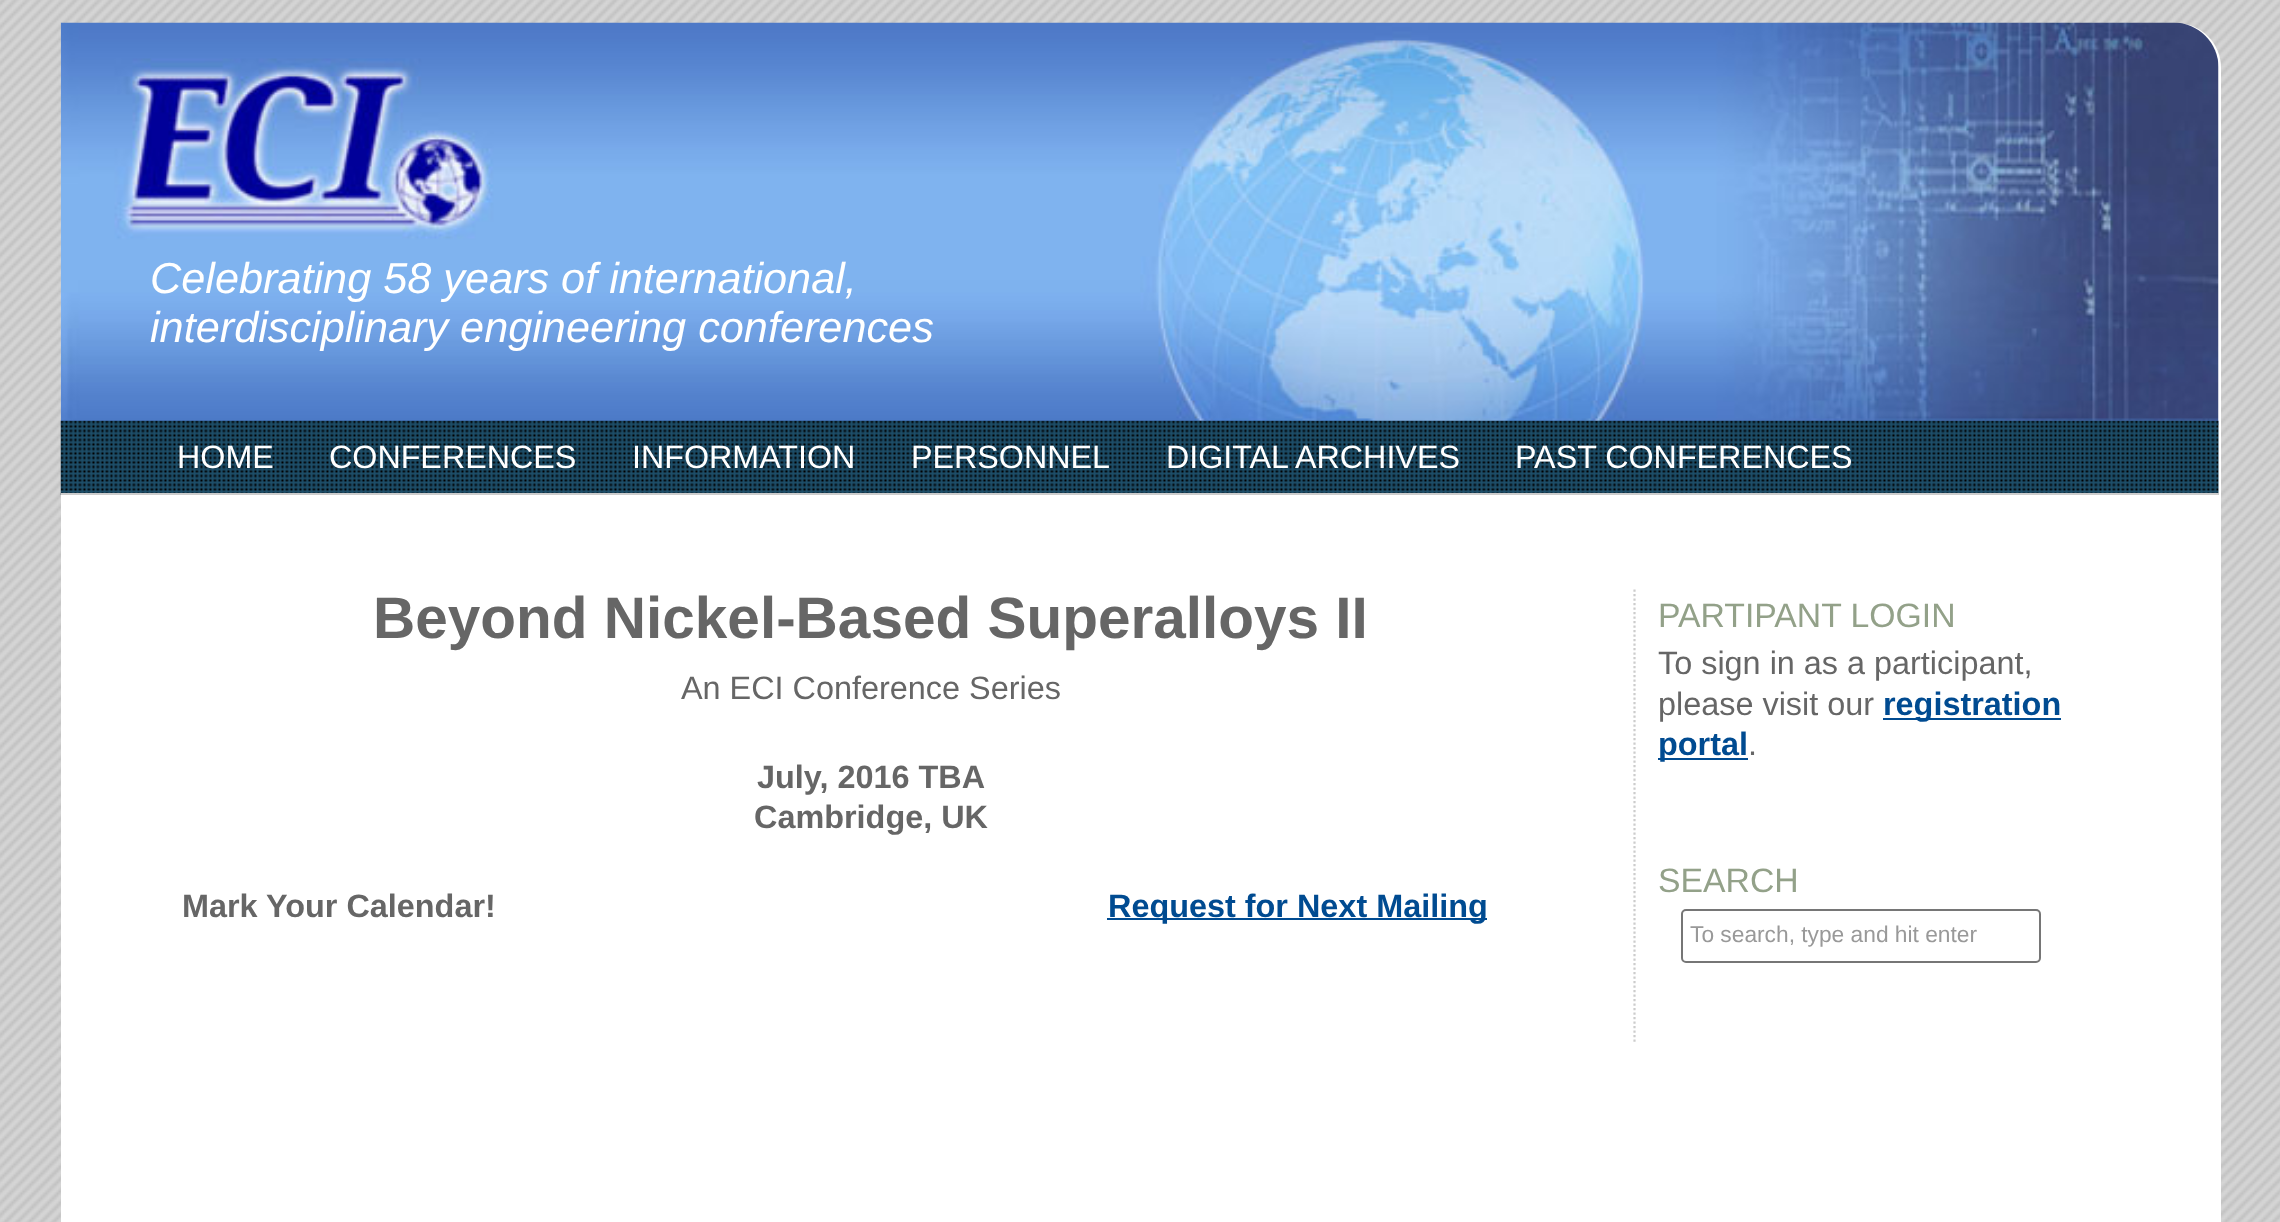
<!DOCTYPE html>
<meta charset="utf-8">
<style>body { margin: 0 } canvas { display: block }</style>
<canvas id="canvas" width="2280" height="1222"></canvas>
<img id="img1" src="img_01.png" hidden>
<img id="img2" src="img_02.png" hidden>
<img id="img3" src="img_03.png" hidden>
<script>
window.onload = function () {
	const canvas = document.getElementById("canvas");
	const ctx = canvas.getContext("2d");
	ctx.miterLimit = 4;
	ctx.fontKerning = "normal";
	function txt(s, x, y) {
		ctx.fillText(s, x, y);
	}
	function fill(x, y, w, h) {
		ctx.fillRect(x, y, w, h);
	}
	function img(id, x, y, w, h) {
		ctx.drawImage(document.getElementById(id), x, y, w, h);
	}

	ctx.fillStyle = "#FFFFFF";
	fill(0, 0, 2280, 1222);
	img("img1", 0, 0, 2280, 1222);
	ctx.beginPath();
	ctx.moveTo(61, 23);
	ctx.lineTo(2176, 23);
	ctx.bezierCurveTo(2201, 23, 2221, 43, 2221, 68);
	ctx.lineTo(2221, 1222);
	ctx.bezierCurveTo(2221, 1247, 2201, 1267, 2176, 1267);
	ctx.lineTo(106, 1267);
	ctx.bezierCurveTo(81, 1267, 61, 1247, 61, 1222);
	ctx.closePath();
	ctx.fill();
	img("img2", 60, 22, 2159, 404);
	img("img3", 60, 420, 2159, 75);
	ctx.fillStyle = "#CCCCCC";
	fill(61, 493, 2158, 2);
	ctx.fillStyle = "#004B91";
	fill(1107, 918, 380, 2);
	ctx.beginPath();
	ctx.moveTo(1634.5, 589.5);
	ctx.lineTo(1634.5, 1044);
	ctx.strokeStyle = "#CCCCCC";
	ctx.lineWidth = 2.2;
	ctx.setLineDash([2.25, 2.25]);
	ctx.stroke();
	fill(1883, 718, 178, 2);
	fill(1658, 758, 90, 2);
	ctx.beginPath();
	ctx.roundRect(1682, 910, 358, 52, 4);
	ctx.strokeStyle = "#767676";
	ctx.lineWidth = 2;
	ctx.setLineDash([]);
	ctx.stroke();
	ctx.font = "italic 43.25px Liberation Sans";
	ctx.fillStyle = "#FFFFFF";
	txt("Celebrating 58 years of international,", 150, 293);
	txt("interdisciplinary engineering conferences", 150, 342);
	ctx.font = "32.25px Liberation Sans";
	txt("HOME", 177, 468);
	txt("CONFERENCES", 329, 468);
	txt("INFORMATION", 632, 468);
	txt("PERSONNEL", 911, 468);
	txt("DIGITAL ARCHIVES", 1166, 468);
	txt("PAST CONFERENCES", 1515, 468);
	ctx.font = "bold 58.5px Liberation Sans";
	ctx.fillStyle = "#666666";
	txt("Beyond Nickel-Based Superalloys II", 373, 638);
	ctx.font = "32.4px Liberation Sans";
	txt("An ECI Conference Series", 681, 699);
	ctx.font = "bold 32.4px Liberation Sans";
	txt("July, 2016 TBA", 757, 788);
	txt("Cambridge, UK", 754, 828);
	txt("Mark Your Calendar!", 182, 917);
	ctx.fillStyle = "#004B91";
	txt("Request for Next Mailing", 1108, 917);
	ctx.font = "33.75px Liberation Sans";
	ctx.fillStyle = "#93A189";
	txt("PARTIPANT LOGIN", 1658, 627);
	ctx.font = "32.4px Liberation Sans";
	ctx.fillStyle = "#666666";
	txt("To sign in as a participant,", 1658, 674);
	txt("please visit our", 1658, 715);
	ctx.font = "bold 32.4px Liberation Sans";
	ctx.fillStyle = "#004B91";
	txt("registration", 1883, 715);
	txt("portal", 1658, 755);
	ctx.font = "32.4px Liberation Sans";
	ctx.fillStyle = "#666666";
	txt(".", 1748, 755);
	ctx.font = "33.75px Liberation Sans";
	ctx.fillStyle = "#93A189";
	txt("SEARCH", 1658, 892);
	ctx.font = "22.75px Liberation Sans";
	ctx.fillStyle = "#999999";
	txt("To search, type and hit enter", 1690, 942);
};
</script>
